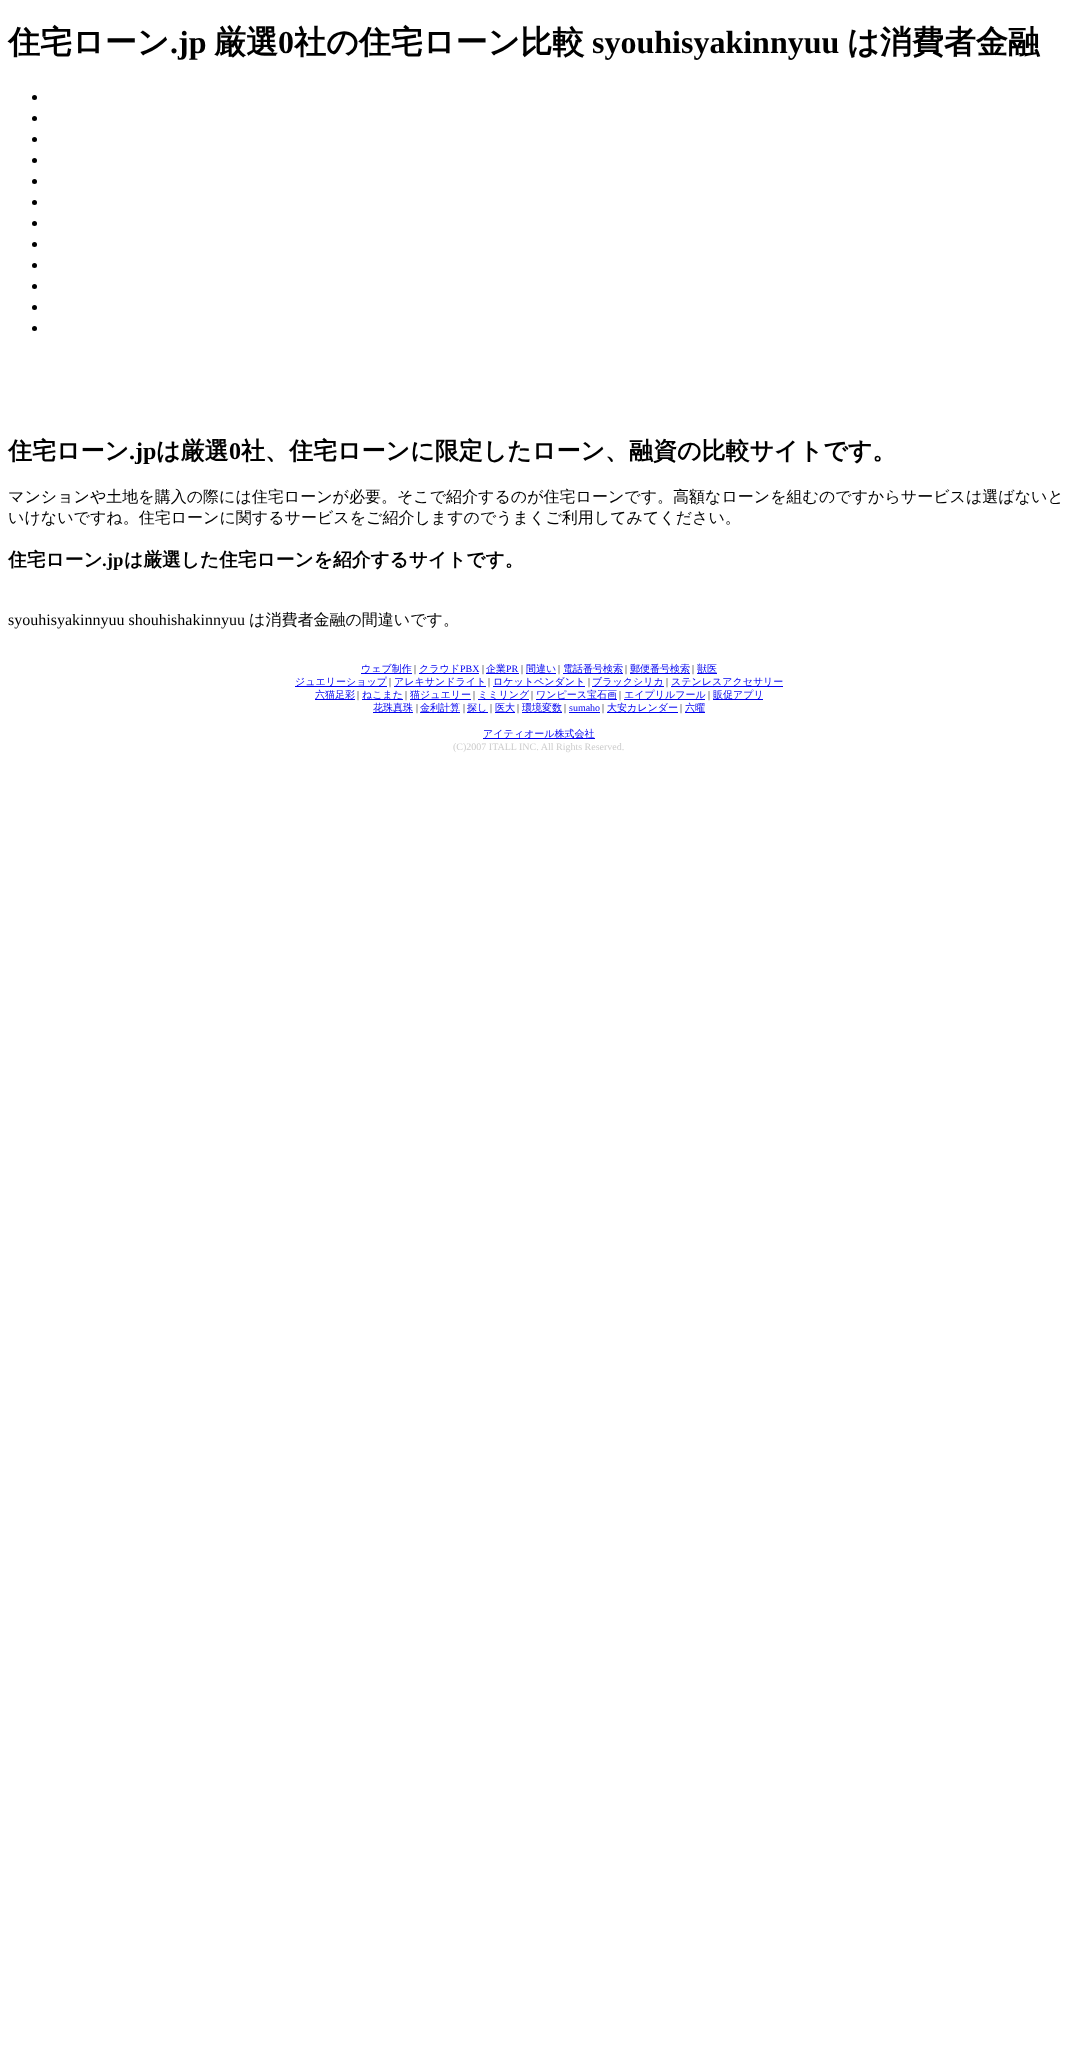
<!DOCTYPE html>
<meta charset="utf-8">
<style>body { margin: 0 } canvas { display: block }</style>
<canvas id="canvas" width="1078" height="2062"></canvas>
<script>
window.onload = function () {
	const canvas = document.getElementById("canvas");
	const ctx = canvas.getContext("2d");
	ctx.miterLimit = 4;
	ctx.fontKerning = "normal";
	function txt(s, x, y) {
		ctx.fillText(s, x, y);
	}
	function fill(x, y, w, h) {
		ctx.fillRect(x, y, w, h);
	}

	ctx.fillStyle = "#FFFFFF";
	fill(0, 0, 1078, 2062);
	ctx.fillStyle = "#000000";
	ctx.beginPath();
	ctx.arc(34.5, 97.5, 2.5, 0, Math.PI * 2);
	ctx.fill();
	ctx.beginPath();
	ctx.arc(34.5, 118.5, 2.5, 0, Math.PI * 2);
	ctx.fill();
	ctx.beginPath();
	ctx.arc(34.5, 139.5, 2.5, 0, Math.PI * 2);
	ctx.fill();
	ctx.beginPath();
	ctx.arc(34.5, 160.5, 2.5, 0, Math.PI * 2);
	ctx.fill();
	ctx.beginPath();
	ctx.arc(34.5, 181.5, 2.5, 0, Math.PI * 2);
	ctx.fill();
	ctx.beginPath();
	ctx.arc(34.5, 202.5, 2.5, 0, Math.PI * 2);
	ctx.fill();
	ctx.beginPath();
	ctx.arc(34.5, 223.5, 2.5, 0, Math.PI * 2);
	ctx.fill();
	ctx.beginPath();
	ctx.arc(34.5, 244.5, 2.5, 0, Math.PI * 2);
	ctx.fill();
	ctx.beginPath();
	ctx.arc(34.5, 265.5, 2.5, 0, Math.PI * 2);
	ctx.fill();
	ctx.beginPath();
	ctx.arc(34.5, 286.5, 2.5, 0, Math.PI * 2);
	ctx.fill();
	ctx.beginPath();
	ctx.arc(34.5, 307.5, 2.5, 0, Math.PI * 2);
	ctx.fill();
	ctx.beginPath();
	ctx.arc(34.5, 328.5, 2.5, 0, Math.PI * 2);
	ctx.fill();
	ctx.fillStyle = "#0000EE";
	fill(361, 673, 51, 1);
	fill(419, 673, 60, 1);
	fill(486, 673, 33, 1);
	fill(526, 673, 30, 1);
	fill(563, 673, 60, 1);
	fill(630, 673, 60, 1);
	fill(697, 673, 20, 1);
	fill(295, 686, 92, 1);
	fill(394, 686, 92, 1);
	fill(493, 686, 92, 1);
	fill(592, 686, 72, 1);
	fill(671, 686, 112, 1);
	fill(315, 699, 40, 1);
	fill(362, 699, 41, 1);
	fill(410, 699, 61, 1);
	fill(478, 699, 51, 1);
	fill(536, 699, 81, 1);
	fill(624, 699, 81, 1);
	fill(713, 699, 50, 1);
	fill(373, 712, 40, 1);
	fill(420, 712, 40, 1);
	fill(467, 712, 21, 1);
	fill(495, 712, 20, 1);
	fill(522, 712, 40, 1);
	fill(569, 712, 31, 1);
	fill(607, 712, 71, 1);
	fill(685, 712, 20, 1);
	fill(483, 738, 112, 1);
	ctx.font = "bold 32px WenQuanYi Zen Hei";
	ctx.fillStyle = "#000000";
	txt("住宅ローン", 8, 53);
	ctx.font = "bold 32px Liberation Serif";
	txt(".jp", 170, 53);
	ctx.font = "bold 32px WenQuanYi Zen Hei";
	txt("厳選", 214, 53);
	ctx.font = "bold 32px Liberation Serif";
	txt("0", 278, 53);
	ctx.font = "bold 32px WenQuanYi Zen Hei";
	txt("社の住宅ローン比較", 294, 53);
	ctx.font = "bold 32px Liberation Serif";
	txt("syouhisyakinnyuu", 592, 53);
	ctx.font = "bold 32px WenQuanYi Zen Hei";
	txt("は消費者金融", 847, 53);
	ctx.font = "bold 24px WenQuanYi Zen Hei";
	txt("住宅ローン", 8, 459);
	ctx.font = "bold 24px Liberation Serif";
	txt(".jp", 129, 459);
	ctx.font = "bold 24px WenQuanYi Zen Hei";
	txt("は厳選", 156, 459);
	ctx.font = "bold 24px Liberation Serif";
	txt("0", 229, 459);
	ctx.font = "bold 24px WenQuanYi Zen Hei";
	txt("社、住宅ローンに限定したローン、融資の比較サイトです。", 241, 459);
	ctx.font = "500 16px WenQuanYi Zen Hei";
	txt("マンションや土地を購入の際には住宅ローンが必要。そこで紹介するのが住宅ローンです。高額なローンを組むのですからサービスは選ばないと", 8, 502);
	txt("いけないですね。住宅ローンに関するサービスをご紹介しますのでうまくご利用してみてください。", 8, 523);
	ctx.font = "bold 18.75px WenQuanYi Zen Hei";
	txt("住宅ローン", 8, 566);
	ctx.font = "bold 18.75px Liberation Serif";
	txt(".jp", 102, 566);
	ctx.font = "bold 18.75px WenQuanYi Zen Hei";
	txt("は厳選した住宅ローンを紹介するサイトです。", 124, 566);
	ctx.font = "16px Liberation Serif";
	txt("syouhisyakinnyuu shouhishakinnyuu", 8, 625);
	ctx.font = "500 16px WenQuanYi Zen Hei";
	txt("は消費者金融の間違いです。", 249, 625);
	ctx.font = "500 10px WenQuanYi Zen Hei";
	ctx.fillStyle = "#0000EE";
	txt("ウェブ制作", 361, 672);
	ctx.font = "10px Liberation Serif";
	ctx.fillStyle = "#000000";
	txt("|", 414, 672);
	ctx.font = "500 10px WenQuanYi Zen Hei";
	ctx.fillStyle = "#0000EE";
	txt("クラウド", 419, 672);
	ctx.font = "10px Liberation Serif";
	txt("PBX", 460, 672);
	ctx.fillStyle = "#000000";
	txt("|", 482, 672);
	ctx.font = "500 10px WenQuanYi Zen Hei";
	ctx.fillStyle = "#0000EE";
	txt("企業", 486, 672);
	ctx.font = "10px Liberation Serif";
	txt("PR", 506, 672);
	ctx.fillStyle = "#000000";
	txt("|", 521, 672);
	ctx.font = "500 10px WenQuanYi Zen Hei";
	ctx.fillStyle = "#0000EE";
	txt("間違い", 526, 672);
	ctx.font = "10px Liberation Serif";
	ctx.fillStyle = "#000000";
	txt("|", 558, 672);
	ctx.font = "500 10px WenQuanYi Zen Hei";
	ctx.fillStyle = "#0000EE";
	txt("電話番号検索", 563, 672);
	ctx.font = "10px Liberation Serif";
	ctx.fillStyle = "#000000";
	txt("|", 625, 672);
	ctx.font = "500 10px WenQuanYi Zen Hei";
	ctx.fillStyle = "#0000EE";
	txt("郵便番号検索", 630, 672);
	ctx.font = "10px Liberation Serif";
	ctx.fillStyle = "#000000";
	txt("|", 692, 672);
	ctx.font = "500 10px WenQuanYi Zen Hei";
	ctx.fillStyle = "#0000EE";
	txt("獣医", 697, 672);
	txt("ジュエリーショップ", 295, 685);
	ctx.font = "10px Liberation Serif";
	ctx.fillStyle = "#000000";
	txt("|", 389, 685);
	ctx.font = "500 10px WenQuanYi Zen Hei";
	ctx.fillStyle = "#0000EE";
	txt("アレキサンドライト", 394, 685);
	ctx.font = "10px Liberation Serif";
	ctx.fillStyle = "#000000";
	txt("|", 488, 685);
	ctx.font = "500 10px WenQuanYi Zen Hei";
	ctx.fillStyle = "#0000EE";
	txt("ロケットペンダント", 493, 685);
	ctx.font = "10px Liberation Serif";
	ctx.fillStyle = "#000000";
	txt("|", 588, 685);
	ctx.font = "500 10px WenQuanYi Zen Hei";
	ctx.fillStyle = "#0000EE";
	txt("ブラックシリカ", 592, 685);
	ctx.font = "10px Liberation Serif";
	ctx.fillStyle = "#000000";
	txt("|", 666, 685);
	ctx.font = "500 10px WenQuanYi Zen Hei";
	ctx.fillStyle = "#0000EE";
	txt("ステンレスアクセサリー", 671, 685);
	txt("六猫足彩", 315, 698);
	ctx.font = "10px Liberation Serif";
	ctx.fillStyle = "#000000";
	txt("|", 357, 698);
	ctx.font = "500 10px WenQuanYi Zen Hei";
	ctx.fillStyle = "#0000EE";
	txt("ねこまた", 362, 698);
	ctx.font = "10px Liberation Serif";
	ctx.fillStyle = "#000000";
	txt("|", 405, 698);
	ctx.font = "500 10px WenQuanYi Zen Hei";
	ctx.fillStyle = "#0000EE";
	txt("猫ジュエリー", 410, 698);
	ctx.font = "10px Liberation Serif";
	ctx.fillStyle = "#000000";
	txt("|", 473, 698);
	ctx.font = "500 10px WenQuanYi Zen Hei";
	ctx.fillStyle = "#0000EE";
	txt("ミミリング", 478, 698);
	ctx.font = "10px Liberation Serif";
	ctx.fillStyle = "#000000";
	txt("|", 531, 698);
	ctx.font = "500 10px WenQuanYi Zen Hei";
	ctx.fillStyle = "#0000EE";
	txt("ワンピース宝石画", 536, 698);
	ctx.font = "10px Liberation Serif";
	ctx.fillStyle = "#000000";
	txt("|", 619, 698);
	ctx.font = "500 10px WenQuanYi Zen Hei";
	ctx.fillStyle = "#0000EE";
	txt("エイプリルフール", 624, 698);
	ctx.font = "10px Liberation Serif";
	ctx.fillStyle = "#000000";
	txt("|", 708, 698);
	ctx.font = "500 10px WenQuanYi Zen Hei";
	ctx.fillStyle = "#0000EE";
	txt("販促アプリ", 713, 698);
	txt("花珠真珠", 373, 711);
	ctx.font = "10px Liberation Serif";
	ctx.fillStyle = "#000000";
	txt("|", 416, 711);
	ctx.font = "500 10px WenQuanYi Zen Hei";
	ctx.fillStyle = "#0000EE";
	txt("金利計算", 420, 711);
	ctx.font = "10px Liberation Serif";
	ctx.fillStyle = "#000000";
	txt("|", 463, 711);
	ctx.font = "500 10px WenQuanYi Zen Hei";
	ctx.fillStyle = "#0000EE";
	txt("探し", 467, 711);
	ctx.font = "10px Liberation Serif";
	ctx.fillStyle = "#000000";
	txt("|", 490, 711);
	ctx.font = "500 10px WenQuanYi Zen Hei";
	ctx.fillStyle = "#0000EE";
	txt("医大", 495, 711);
	ctx.font = "10px Liberation Serif";
	ctx.fillStyle = "#000000";
	txt("|", 517, 711);
	ctx.font = "500 10px WenQuanYi Zen Hei";
	ctx.fillStyle = "#0000EE";
	txt("環境変数", 522, 711);
	ctx.font = "10px Liberation Serif";
	ctx.fillStyle = "#000000";
	txt("|", 564, 711);
	ctx.fillStyle = "#0000EE";
	txt("sumaho", 569, 711);
	ctx.fillStyle = "#000000";
	txt("|", 602, 711);
	ctx.font = "500 10px WenQuanYi Zen Hei";
	ctx.fillStyle = "#0000EE";
	txt("大安カレンダー", 607, 711);
	ctx.font = "10px Liberation Serif";
	ctx.fillStyle = "#000000";
	txt("|", 680, 711);
	ctx.font = "500 10px WenQuanYi Zen Hei";
	ctx.fillStyle = "#0000EE";
	txt("六曜", 685, 711);
	txt("アイティオール株式会社", 483, 737);
	ctx.font = "10px Liberation Serif";
	ctx.fillStyle = "#CCCCCC";
	txt("(C)2007 ITALL INC. All Rights Reserved.", 453, 750);
};
</script>
